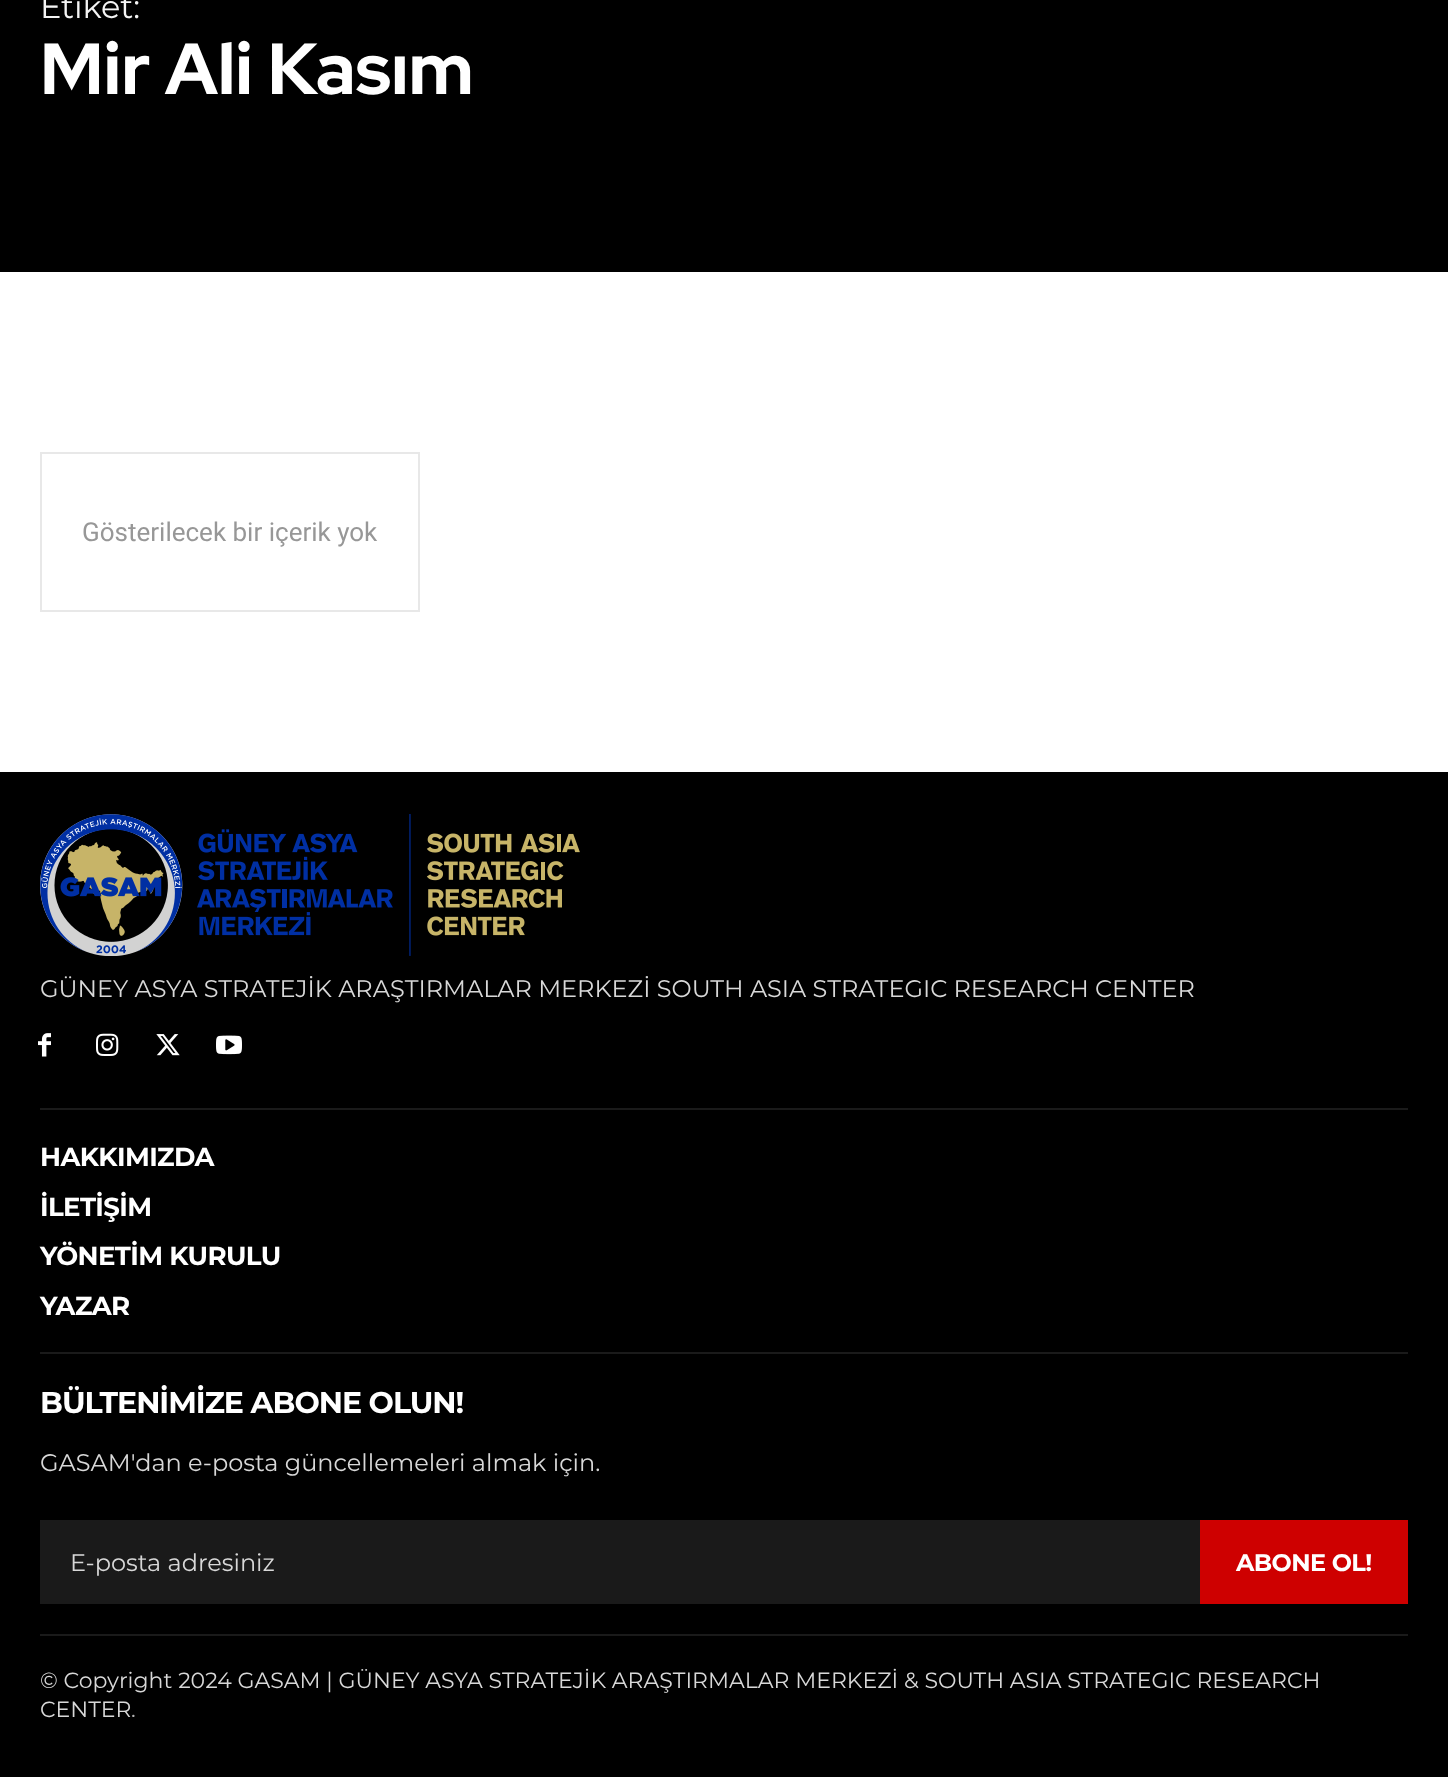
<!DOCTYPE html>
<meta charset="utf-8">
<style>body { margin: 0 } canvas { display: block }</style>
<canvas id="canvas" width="1448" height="1777"></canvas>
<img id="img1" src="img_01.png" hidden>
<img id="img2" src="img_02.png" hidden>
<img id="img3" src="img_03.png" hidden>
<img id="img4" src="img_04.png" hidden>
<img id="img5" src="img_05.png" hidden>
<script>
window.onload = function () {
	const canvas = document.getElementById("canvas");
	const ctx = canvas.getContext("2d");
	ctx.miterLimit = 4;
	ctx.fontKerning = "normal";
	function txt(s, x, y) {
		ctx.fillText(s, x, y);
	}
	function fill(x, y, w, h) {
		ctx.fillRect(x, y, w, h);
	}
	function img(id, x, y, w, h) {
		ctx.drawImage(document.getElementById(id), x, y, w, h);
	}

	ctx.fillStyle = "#FFFFFF";
	fill(0, 0, 1448, 1777);
	ctx.fillStyle = "#000000";
	fill(0, 0, 1448, 272);
	ctx.strokeStyle = "#E8E8E8";
	ctx.lineWidth = 2;
	ctx.strokeRect(41, 453, 378, 158);
	fill(0, 772, 1448, 1005);
	ctx.fillStyle = "#1A1A1A";
	fill(40, 1634, 1368, 2);
	fill(40, 1108, 1368, 2);
	img("img1", 40, 814, 540, 142);
	img("img2", 38, 1033, 13, 24);
	img("img3", 96, 1033, 23, 23);
	img("img4", 156, 1034, 24, 22);
	img("img5", 216, 1035, 26, 20);
	fill(40, 1352, 1368, 2);
	fill(40, 1520, 1160, 84);
	ctx.fillStyle = "#CE0000";
	fill(1200, 1520, 208, 84);
	ctx.font = "32px Montserrat";
	ctx.fillStyle = "#F4F4F4";
	txt("Etiket:", 40, 18);
	ctx.font = "800 72px Red Hat Display";
	ctx.fillStyle = "#FFFFFF";
	txt("Mir Ali Kasım", 40, 94);
	ctx.font = "26px Roboto";
	ctx.fillStyle = "#979797";
	txt("Gösterilecek bir içerik yok", 82, 541);
	ctx.font = "24px Montserrat";
	ctx.fillStyle = "#D8D8D8";
	txt("GÜNEY ASYA STRATEJİK ARAŞTIRMALAR MERKEZİ SOUTH ASIA STRATEGIC RESEARCH CENTER", 40, 997);
	ctx.letterSpacing = "-0.6px";
	ctx.font = "bold 26px Montserrat";
	ctx.fillStyle = "#FFFFFF";
	txt("HAKKIMIZDA", 40, 1166);
	txt("İLETİŞİM", 40, 1216);
	txt("YÖNETİM KURULU", 40, 1265);
	txt("YAZAR", 40, 1315);
	ctx.letterSpacing = "-1px";
	ctx.font = "bold 30px Montserrat";
	txt("BÜLTENİMİZE ABONE OLUN!", 40, 1413);
	ctx.letterSpacing = "0px";
	ctx.font = "24px Montserrat";
	ctx.fillStyle = "#D8D8D8";
	txt("GASAM'dan e-posta güncellemeleri almak için.", 40, 1471);
	txt("E-posta adresiniz", 70, 1571);
	ctx.letterSpacing = "-0.6px";
	ctx.font = "bold 24px Montserrat";
	ctx.fillStyle = "#FFFFFF";
	txt("ABONE OL!", 1236, 1571);
	ctx.letterSpacing = "0px";
	ctx.font = "22px Montserrat";
	ctx.fillStyle = "#D8D8D8";
	txt("© Copyright 2024 GASAM | GÜNEY ASYA STRATEJİK ARAŞTIRMALAR MERKEZİ & SOUTH ASIA STRATEGIC RESEARCH", 40, 1688);
	txt("CENTER", 40, 1717);
	ctx.fillStyle = "#B5B5B5";
	txt(".", 131, 1717);
};
</script>
